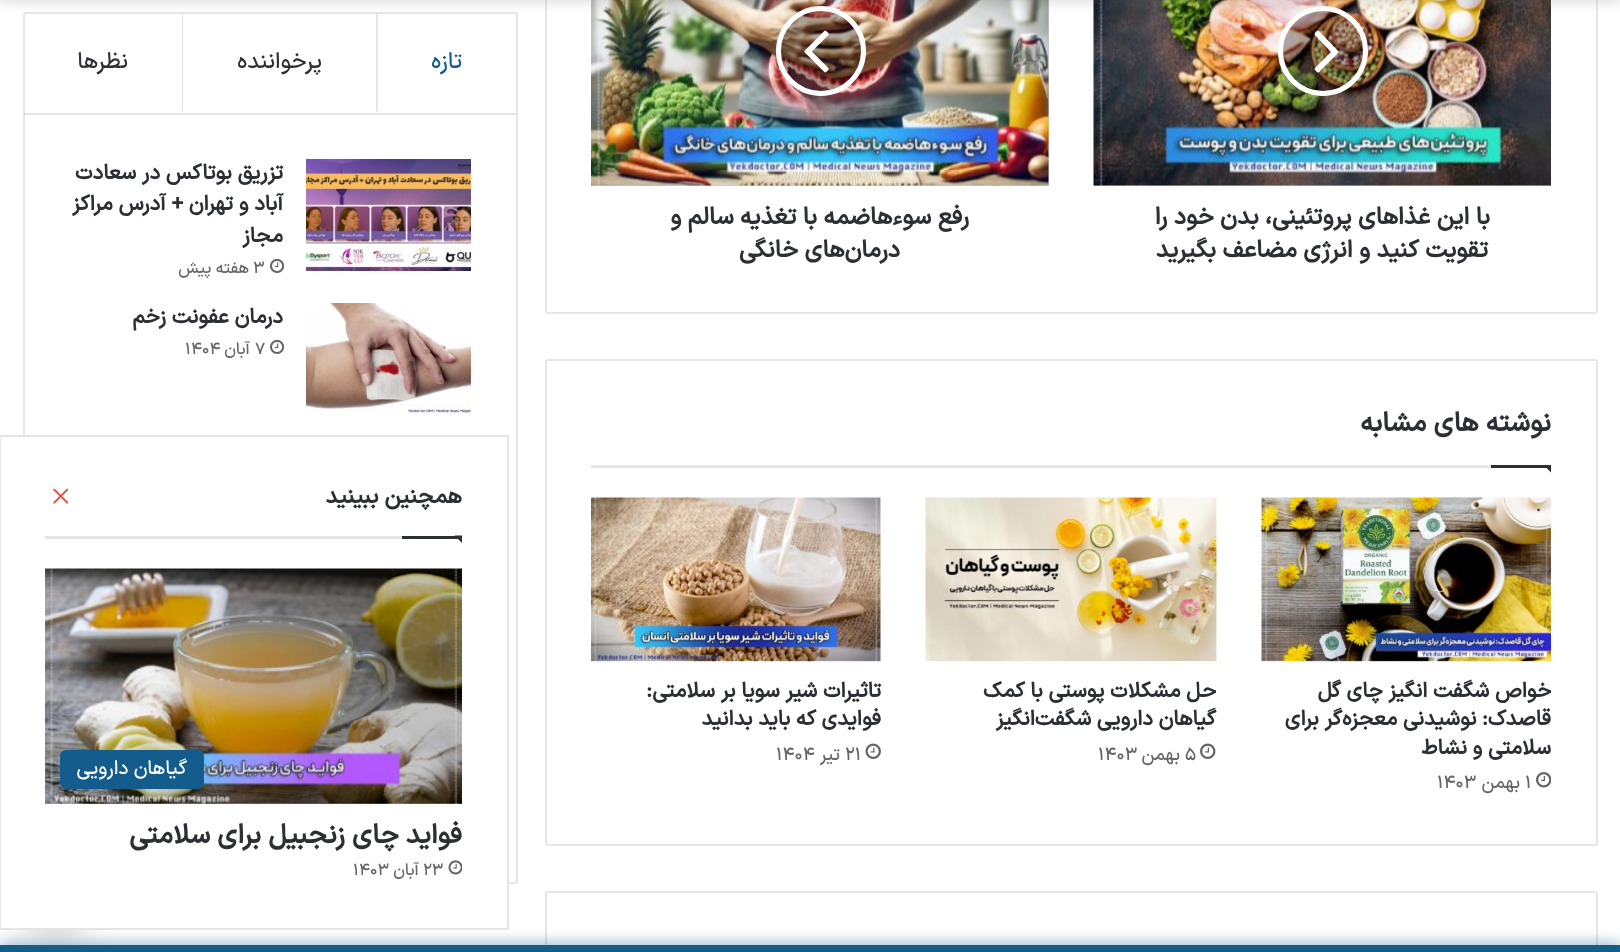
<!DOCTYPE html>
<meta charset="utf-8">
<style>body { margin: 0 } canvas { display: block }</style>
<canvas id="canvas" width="1620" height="952"></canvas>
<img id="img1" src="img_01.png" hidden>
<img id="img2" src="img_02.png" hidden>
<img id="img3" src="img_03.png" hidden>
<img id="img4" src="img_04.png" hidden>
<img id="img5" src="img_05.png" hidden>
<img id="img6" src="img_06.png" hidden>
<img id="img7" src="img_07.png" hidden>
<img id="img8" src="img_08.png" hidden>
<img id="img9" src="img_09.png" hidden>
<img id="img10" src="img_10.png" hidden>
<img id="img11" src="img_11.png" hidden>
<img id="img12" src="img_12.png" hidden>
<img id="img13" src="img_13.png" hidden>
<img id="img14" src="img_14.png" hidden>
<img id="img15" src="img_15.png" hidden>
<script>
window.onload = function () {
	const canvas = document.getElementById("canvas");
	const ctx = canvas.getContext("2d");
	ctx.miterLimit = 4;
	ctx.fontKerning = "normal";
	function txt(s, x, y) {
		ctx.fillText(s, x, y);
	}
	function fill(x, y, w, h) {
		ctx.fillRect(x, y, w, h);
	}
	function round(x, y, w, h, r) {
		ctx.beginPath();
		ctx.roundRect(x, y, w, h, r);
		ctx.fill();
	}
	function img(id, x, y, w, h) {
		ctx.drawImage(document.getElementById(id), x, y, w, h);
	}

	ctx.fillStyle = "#FFFFFF";
	fill(0, 0, 1620, 952);
	ctx.beginPath();
	ctx.roundRect(546, -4, 1051, 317, 2);
	ctx.strokeStyle = "#E6E6E6";
	ctx.lineWidth = 2;
	ctx.stroke();
	ctx.fillStyle = "#CCCCCC";
	fill(1094, 185, 457, 1);
	img("img1", 1093, 0, 458, 186);
	ctx.fillStyle = "rgba(0, 0, 0, 0.3)";
	ctx.beginPath();
	ctx.arc(1323, 51, 42.5, 0, Math.PI * 2);
	ctx.fill();
	ctx.strokeStyle = "#FFFFFF";
	ctx.lineWidth = 5;
	ctx.stroke();
	ctx.fillStyle = "#CCCCCC";
	fill(591, 0, 458, 186);
	img("img2", 591, 0, 458, 186);
	ctx.fillStyle = "rgba(0, 0, 0, 0.3)";
	ctx.beginPath();
	ctx.arc(821, 51, 42.5, 0, Math.PI * 2);
	ctx.fill();
	ctx.stroke();
	ctx.beginPath();
	ctx.roundRect(24, 13, 493, 870, 2);
	ctx.strokeStyle = "#E6E6E6";
	ctx.lineWidth = 2;
	ctx.stroke();
	ctx.fillStyle = "#E6E6E6";
	ctx.beginPath();
	ctx.moveTo(376, 112);
	ctx.lineTo(376, 14);
	ctx.lineTo(378, 14);
	ctx.lineTo(378, 111);
	ctx.closePath();
	ctx.fill();
	ctx.fillStyle = "#E1E1E1";
	ctx.beginPath();
	ctx.moveTo(182, 112);
	ctx.lineTo(182, 14);
	ctx.lineTo(183, 14);
	ctx.lineTo(183, 111);
	ctx.closePath();
	ctx.fill();
	ctx.fillStyle = "rgba(99, 99, 99, 0.2)";
	ctx.filter = "blur(6px)";
	ctx.beginPath();
	ctx.rect(0, -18, 1620, 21);
	ctx.fill();
	ctx.filter = "none";
	ctx.fillStyle = "#FFFFFF";
	ctx.beginPath();
	ctx.moveTo(1339, 52);
	ctx.lineTo(1322, 69);
	ctx.bezierCurveTo(1319, 72, 1319, 74, 1316, 71);
	ctx.bezierCurveTo(1315, 70, 1314, 69, 1315, 68);
	ctx.lineTo(1331, 52);
	ctx.lineTo(1315, 35);
	ctx.bezierCurveTo(1314, 33, 1317, 30, 1319, 31);
	ctx.closePath();
	ctx.fill();
	img("img3", 804, 30, 25, 43);
	ctx.beginPath();
	ctx.roundRect(546, 360, 1051, 485, 2);
	ctx.stroke();
	ctx.fillStyle = "#E6E6E6";
	fill(591, 465, 900, 3);
	ctx.fillStyle = "#2C2F34";
	ctx.beginPath();
	ctx.moveTo(1543.5, 465);
	ctx.lineTo(1551, 465);
	ctx.lineTo(1551, 472.5);
	ctx.closePath();
	ctx.fill();
	fill(1491, 465, 60, 3);
	img("img4", 1261, 497, 290, 165);
	img("img5", 1536, 772, 15, 16);
	img("img6", 925, 497, 292, 164);
	img("img7", 1200, 743, 16, 16);
	img("img8", 591, 497, 290, 165);
	img("img9", 865, 743, 16, 16);
	ctx.beginPath();
	ctx.roundRect(546, 892, 1051, 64, 2);
	ctx.stroke();
	ctx.fillStyle = "rgba(0, 0, 0, 0.1)";
	fill(24, 113, 492, 2);
	img("img10", 306, 159, 165, 112);
	img("img11", 270, 258, 14, 15);
	img("img12", 306, 303, 165, 112);
	img("img11", 270, 339, 14, 15);
	ctx.fillStyle = "rgba(0, 0, 0, 0.3)";
	ctx.filter = "blur(19px)";
	ctx.beginPath();
	ctx.roundRect(23, 867, 63, 63, 31.5);
	ctx.fill();
	ctx.filter = "none";
	ctx.fillStyle = "#FFFFFF";
	ctx.beginPath();
	ctx.moveTo(2, 436);
	ctx.lineTo(508, 436);
	ctx.lineTo(508, 929);
	ctx.lineTo(2, 929);
	ctx.bezierCurveTo(1, 929, 0, 928, 0, 927);
	ctx.lineTo(0, 438);
	ctx.bezierCurveTo(0, 437, 1, 436, 2, 436);
	ctx.closePath();
	ctx.fill();
	ctx.strokeStyle = "#E5E5E5";
	ctx.stroke();
	ctx.fillStyle = "#E6E6E6";
	fill(45, 536, 357, 3);
	img("img13", 53, 488, 16, 16);
	ctx.fillStyle = "#2C2F34";
	ctx.beginPath();
	ctx.moveTo(454.5, 535.5);
	ctx.lineTo(462, 535.5);
	ctx.lineTo(462, 543);
	ctx.closePath();
	ctx.fill();
	fill(402, 536, 60, 3);
	img("img14", 45, 568, 417, 236);
	ctx.fillStyle = "#145C8B";
	round(60, 750, 144, 39, 6);
	img("img15", 448, 860, 14, 15);
	ctx.fillStyle = "rgba(20, 92, 139, 0.7)";
	ctx.filter = "blur(7.5px)";
	ctx.beginPath();
	ctx.rect(0, 945, 1620, 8);
	ctx.fill();
	ctx.filter = "none";
	ctx.fillStyle = "#145C8B";
	fill(0, 945, 1620, 7);
	ctx.direction = "rtl";
	ctx.font = "bold 24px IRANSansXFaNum";
	ctx.fillStyle = "#2C2F34";
	txt("با این غذاهای پروتئینی، بدن خود را", 1490, 224);
	txt("تقویت کنید و انرژی مضاعف بگیرید", 1488, 257);
	txt("رفع سوءهاضمه با تغذیه سالم و", 969, 224);
	txt("درمان‌های خانگی", 900, 257);
	ctx.font = "bold 27px IRANSansXFaNum";
	txt("نوشته های مشابه", 1551, 431);
	ctx.font = "bold 21px IRANSansXFaNum";
	txt("خواص شگفت انگیز چای گل", 1551, 697);
	txt("قاصدک: نوشیدنی معجزه‌گر برای", 1551, 725);
	txt("سلامتی و نشاط", 1551, 754);
	ctx.direction = "ltr";
	ctx.font = "500 18px IRANSansXFaNum";
	ctx.fillStyle = "#666666";
	txt("1", 1525, 788);
	ctx.direction = "rtl";
	txt("بهمن", 1520, 788);
	ctx.direction = "ltr";
	txt("1403", 1437, 788);
	ctx.direction = "rtl";
	ctx.font = "bold 21px IRANSansXFaNum";
	ctx.fillStyle = "#2C2F34";
	txt("حل مشکلات پوستی با کمک", 1216, 697);
	txt("گیاهان دارویی شگفت‌انگیز", 1216, 725);
	ctx.direction = "ltr";
	ctx.font = "500 18px IRANSansXFaNum";
	ctx.fillStyle = "#666666";
	txt("5", 1185, 760);
	ctx.direction = "rtl";
	txt("بهمن", 1180, 760);
	ctx.direction = "ltr";
	txt("1403", 1098, 760);
	ctx.direction = "rtl";
	ctx.font = "bold 21px IRANSansXFaNum";
	ctx.fillStyle = "#2C2F34";
	txt("تاثیرات شیر سویا بر سلامتی:", 881, 697);
	txt("فوایدی که باید بدانید", 881, 725);
	ctx.direction = "ltr";
	ctx.font = "500 18px IRANSansXFaNum";
	ctx.fillStyle = "#666666";
	txt("21", 845, 760);
	ctx.direction = "rtl";
	txt("تیر", 840, 760);
	ctx.direction = "ltr";
	txt("1404", 776, 760);
	ctx.direction = "rtl";
	ctx.font = "500 22.5px IRANSansXFaNum";
	ctx.fillStyle = "#145C8B";
	txt("تازه", 462, 68);
	ctx.fillStyle = "#2C2F34";
	txt("پرخواننده", 322, 68);
	txt("نظرها", 128, 68);
	ctx.font = "bold 21px IRANSansXFaNum";
	txt("تزریق بوتاکس در سعادت", 283, 179);
	txt("آباد و تهران + آدرس مراکز", 283, 210);
	txt("مجاز", 283, 242);
	ctx.direction = "ltr";
	ctx.font = "500 16.5px IRANSansXFaNum";
	ctx.fillStyle = "#666666";
	txt("3", 253, 273);
	ctx.direction = "rtl";
	txt("هفته پیش", 249, 273);
	ctx.font = "bold 21px IRANSansXFaNum";
	ctx.fillStyle = "#2C2F34";
	txt("درمان عفونت زخم", 283, 323);
	ctx.direction = "ltr";
	ctx.font = "500 16.5px IRANSansXFaNum";
	ctx.fillStyle = "#666666";
	txt("7", 255, 354);
	ctx.direction = "rtl";
	txt("آبان", 250, 354);
	ctx.direction = "ltr";
	txt("1404", 185, 354);
	ctx.direction = "rtl";
	ctx.font = "bold 22.5px IRANSansXFaNum";
	ctx.fillStyle = "#2C2F34";
	txt("همچنین ببینید", 462, 503);
	ctx.font = "500 19.5px IRANSansXFaNum";
	ctx.fillStyle = "#FFFFFF";
	txt("گیاهان دارویی", 187, 774);
	ctx.font = "bold 27px IRANSansXFaNum";
	ctx.fillStyle = "#2C2F34";
	txt("فواید چای زنجبیل برای سلامتی", 462, 843);
	ctx.direction = "ltr";
	ctx.font = "500 16.5px IRANSansXFaNum";
	ctx.fillStyle = "#666666";
	txt("23", 423, 875);
	ctx.direction = "rtl";
	txt("آبان", 419, 875);
	ctx.direction = "ltr";
	txt("1403", 353, 875);
};
</script>
